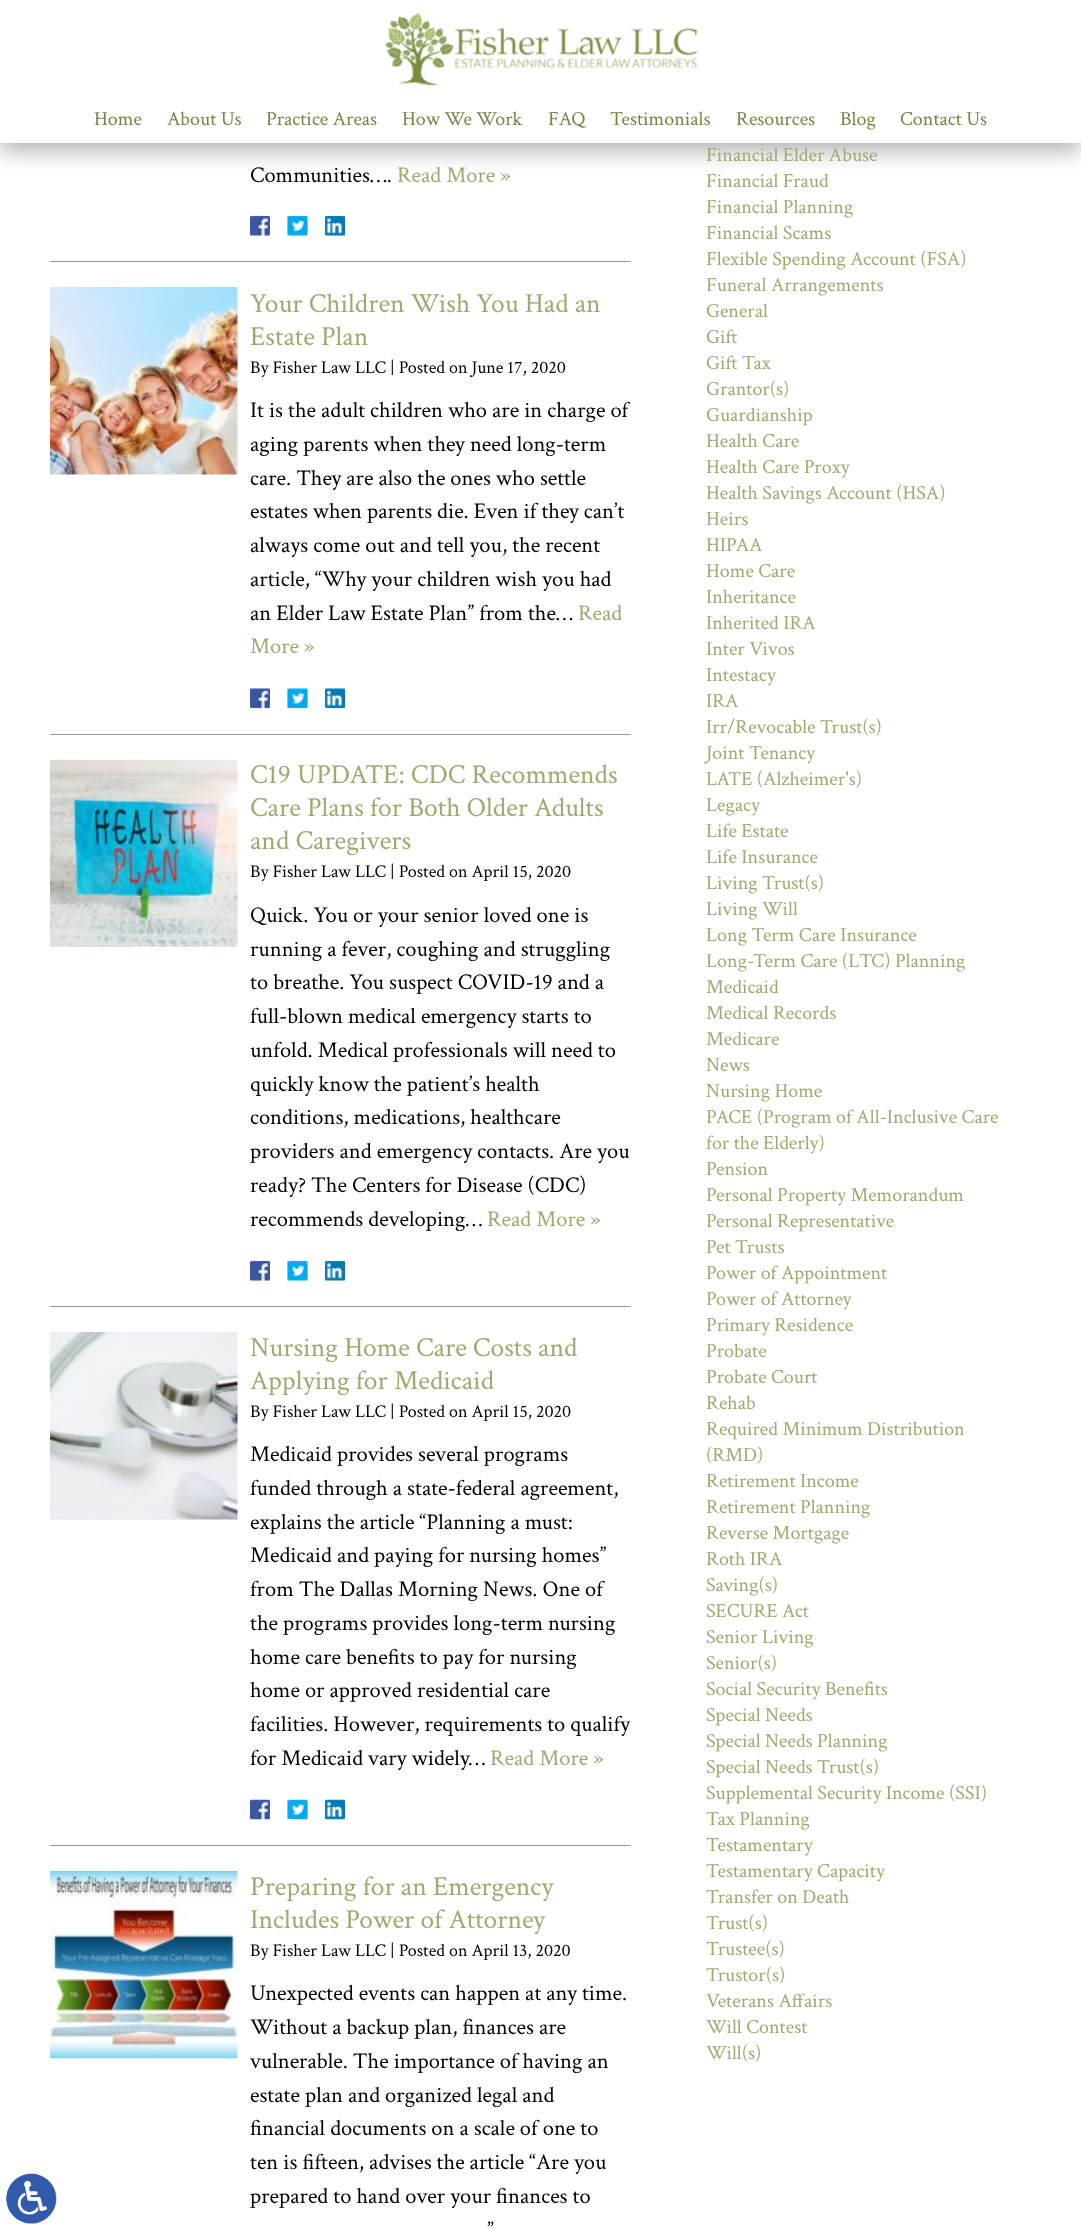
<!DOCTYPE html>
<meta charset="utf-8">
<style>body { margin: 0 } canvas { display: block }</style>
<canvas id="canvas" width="1081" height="2229"></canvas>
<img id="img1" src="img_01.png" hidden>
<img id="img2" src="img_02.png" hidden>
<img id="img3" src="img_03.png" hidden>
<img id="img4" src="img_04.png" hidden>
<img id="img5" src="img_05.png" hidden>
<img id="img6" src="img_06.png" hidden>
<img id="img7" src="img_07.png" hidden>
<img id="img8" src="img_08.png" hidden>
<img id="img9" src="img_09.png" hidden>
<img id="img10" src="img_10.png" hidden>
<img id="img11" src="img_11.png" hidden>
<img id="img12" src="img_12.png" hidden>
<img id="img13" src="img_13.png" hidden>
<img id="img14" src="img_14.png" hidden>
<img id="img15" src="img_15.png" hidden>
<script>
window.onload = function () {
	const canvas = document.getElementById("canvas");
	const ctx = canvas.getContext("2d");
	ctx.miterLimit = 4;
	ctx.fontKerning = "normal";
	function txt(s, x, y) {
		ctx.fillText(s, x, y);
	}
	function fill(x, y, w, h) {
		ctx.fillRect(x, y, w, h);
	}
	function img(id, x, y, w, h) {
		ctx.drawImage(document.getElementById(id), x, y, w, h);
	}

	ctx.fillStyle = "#FFFFFF";
	fill(0, 0, 1081, 2229);
	img("img1", 6, 2173, 51, 51);
	ctx.fillStyle = "rgba(0, 0, 0, 0.35)";
	ctx.filter = "blur(12.5px)";
	ctx.beginPath();
	ctx.rect(0, 6, 1081, 143);
	ctx.fill();
	ctx.filter = "none";
	ctx.fillStyle = "#FFFFFF";
	fill(0, 0, 1081, 143);
	img("img2", 384, 12, 314, 73);
	ctx.fillStyle = "#999999";
	fill(50, 261, 581, 1);
	img("img3", 250, 215, 20, 21);
	img("img4", 287, 215, 21, 21);
	img("img5", 325, 215, 20, 21);
	fill(50, 734, 581, 1);
	img("img6", 50, 287, 188, 188);
	img("img7", 250, 688, 20, 21);
	img("img8", 287, 688, 21, 21);
	img("img9", 325, 688, 20, 21);
	fill(50, 1306, 581, 1);
	img("img10", 50, 759, 188, 188);
	img("img3", 250, 1260, 20, 21);
	img("img4", 287, 1260, 21, 21);
	img("img5", 325, 1260, 20, 21);
	fill(50, 1845, 581, 1);
	img("img11", 50, 1332, 188, 188);
	img("img12", 250, 1799, 20, 21);
	img("img13", 287, 1799, 21, 21);
	img("img14", 325, 1799, 20, 21);
	img("img15", 50, 1870, 188, 189);
	ctx.font = "20px Crimson Text";
	ctx.fillStyle = "#7E8145";
	txt("Home", 94, 125);
	txt("About Us", 167, 125);
	txt("Practice Areas", 266, 125);
	txt("How We Work", 402, 125);
	txt("FAQ", 548, 125);
	txt("Testimonials", 610, 125);
	txt("Resources", 736, 125);
	txt("Blog", 840, 125);
	txt("Contact Us", 900, 125);
	ctx.font = "22.5px Crimson Text";
	ctx.fillStyle = "#000000";
	txt("Communities….", 250, 182);
	ctx.fillStyle = "#A4A770";
	txt("Read More »", 397, 182);
	ctx.font = "27.5px Crimson Text";
	txt("Your Children Wish You Had an", 250, 312);
	txt("Estate Plan", 250, 345);
	ctx.font = "18px Crimson Text";
	ctx.fillStyle = "#000000";
	txt("By Fisher Law LLC | Posted on June 17, 2020", 250, 373);
	ctx.font = "22.5px Crimson Text";
	txt("It is the adult children who are in charge of", 250, 417);
	txt("aging parents when they need long-term", 250, 451);
	txt("care. They are also the ones who settle", 250, 485);
	txt("estates when parents die. Even if they can’t", 250, 518);
	txt("always come out and tell you, the recent", 250, 552);
	txt("article, “Why your children wish you had", 250, 586);
	txt("an Elder Law Estate Plan” from the…", 250, 620);
	ctx.fillStyle = "#A4A770";
	txt("Read", 578, 620);
	txt("More »", 250, 653);
	ctx.font = "27.5px Crimson Text";
	txt("C19 UPDATE: CDC Recommends", 250, 783);
	txt("Care Plans for Both Older Adults", 250, 816);
	txt("and Caregivers", 250, 849);
	ctx.font = "18px Crimson Text";
	ctx.fillStyle = "#000000";
	txt("By Fisher Law LLC | Posted on April 15, 2020", 250, 877);
	ctx.font = "22.5px Crimson Text";
	txt("Quick. You or your senior loved one is", 250, 922);
	txt("running a fever, coughing and struggling", 250, 956);
	txt("to breathe. You suspect COVID-19 and a", 250, 989);
	txt("full-blown medical emergency starts to", 250, 1023);
	txt("unfold. Medical professionals will need to", 250, 1057);
	txt("quickly know the patient’s health", 250, 1091);
	txt("conditions, medications, healthcare", 250, 1124);
	txt("providers and emergency contacts. Are you", 250, 1158);
	txt("ready? The Centers for Disease (CDC)", 250, 1192);
	txt("recommends developing…", 250, 1226);
	ctx.fillStyle = "#A4A770";
	txt("Read More »", 487, 1226);
	ctx.font = "27.5px Crimson Text";
	txt("Nursing Home Care Costs and", 250, 1356);
	txt("Applying for Medicaid", 250, 1389);
	ctx.font = "18px Crimson Text";
	ctx.fillStyle = "#000000";
	txt("By Fisher Law LLC | Posted on April 15, 2020", 250, 1417);
	ctx.font = "22.5px Crimson Text";
	txt("Medicaid provides several programs", 250, 1461);
	txt("funded through a state-federal agreement,", 250, 1495);
	txt("explains the article “Planning a must:", 250, 1529);
	txt("Medicaid and paying for nursing homes”", 250, 1562);
	txt("from The Dallas Morning News. One of", 250, 1596);
	txt("the programs provides long-term nursing", 250, 1630);
	txt("home care benefits to pay for nursing", 250, 1664);
	txt("home or approved residential care", 250, 1697);
	txt("facilities. However, requirements to qualify", 250, 1731);
	txt("for Medicaid vary widely…", 250, 1765);
	ctx.fillStyle = "#A4A770";
	txt("Read More »", 490, 1765);
	ctx.font = "27.5px Crimson Text";
	txt("Preparing for an Emergency", 250, 1895);
	txt("Includes Power of Attorney", 250, 1928);
	ctx.font = "18px Crimson Text";
	ctx.fillStyle = "#000000";
	txt("By Fisher Law LLC | Posted on April 13, 2020", 250, 1956);
	ctx.font = "22.5px Crimson Text";
	txt("Unexpected events can happen at any time.", 250, 2000);
	txt("Without a backup plan, finances are", 250, 2034);
	txt("vulnerable. The importance of having an", 250, 2068);
	txt("estate plan and organized legal and", 250, 2102);
	txt("financial documents on a scale of one to", 250, 2135);
	txt("ten is fifteen, advises the article “Are you", 250, 2169);
	txt("prepared to hand over your finances to", 250, 2203);
	txt("”", 487, 2237);
	ctx.font = "20px Crimson Text";
	ctx.fillStyle = "#A4A770";
	txt("Financial Elder Abuse", 706, 161);
	txt("Financial Fraud", 706, 187);
	txt("Financial Planning", 706, 213);
	txt("Financial Scams", 706, 239);
	txt("Flexible Spending Account (FSA)", 706, 265);
	txt("Funeral Arrangements", 706, 291);
	txt("General", 706, 317);
	txt("Gift", 706, 343);
	txt("Gift Tax", 706, 369);
	txt("Grantor(s)", 706, 395);
	txt("Guardianship", 706, 421);
	txt("Health Care", 706, 447);
	txt("Health Care Proxy", 706, 473);
	txt("Health Savings Account (HSA)", 706, 499);
	txt("Heirs", 706, 525);
	txt("HIPAA", 706, 551);
	txt("Home Care", 706, 577);
	txt("Inheritance", 706, 603);
	txt("Inherited IRA", 706, 629);
	txt("Inter Vivos", 706, 655);
	txt("Intestacy", 706, 681);
	txt("IRA", 706, 707);
	txt("Irr/Revocable Trust(s)", 706, 733);
	txt("Joint Tenancy", 706, 759);
	txt("LATE (Alzheimer's)", 706, 785);
	txt("Legacy", 706, 811);
	txt("Life Estate", 706, 837);
	txt("Life Insurance", 706, 863);
	txt("Living Trust(s)", 706, 889);
	txt("Living Will", 706, 915);
	txt("Long Term Care Insurance", 706, 941);
	txt("Long-Term Care (LTC) Planning", 706, 967);
	txt("Medicaid", 706, 993);
	txt("Medical Records", 706, 1019);
	txt("Medicare", 706, 1045);
	txt("News", 706, 1071);
	txt("Nursing Home", 706, 1097);
	txt("PACE (Program of All-Inclusive Care", 706, 1123);
	txt("for the Elderly)", 706, 1149);
	txt("Pension", 706, 1175);
	txt("Personal Property Memorandum", 706, 1201);
	txt("Personal Representative", 706, 1227);
	txt("Pet Trusts", 706, 1253);
	txt("Power of Appointment", 706, 1279);
	txt("Power of Attorney", 706, 1305);
	txt("Primary Residence", 706, 1331);
	txt("Probate", 706, 1357);
	txt("Probate Court", 706, 1383);
	txt("Rehab", 706, 1409);
	txt("Required Minimum Distribution", 706, 1435);
	txt("(RMD)", 706, 1461);
	txt("Retirement Income", 706, 1487);
	txt("Retirement Planning", 706, 1513);
	txt("Reverse Mortgage", 706, 1539);
	txt("Roth IRA", 706, 1565);
	txt("Saving(s)", 706, 1591);
	txt("SECURE Act", 706, 1617);
	txt("Senior Living", 706, 1643);
	txt("Senior(s)", 706, 1669);
	txt("Social Security Benefits", 706, 1695);
	txt("Special Needs", 706, 1721);
	txt("Special Needs Planning", 706, 1747);
	txt("Special Needs Trust(s)", 706, 1773);
	txt("Supplemental Security Income (SSI)", 706, 1799);
	txt("Tax Planning", 706, 1825);
	txt("Testamentary", 706, 1851);
	txt("Testamentary Capacity", 706, 1877);
	txt("Transfer on Death", 706, 1903);
	txt("Trust(s)", 706, 1929);
	txt("Trustee(s)", 706, 1955);
	txt("Trustor(s)", 706, 1981);
	txt("Veterans Affairs", 706, 2007);
	txt("Will Contest", 706, 2033);
	txt("Will(s)", 706, 2059);
};
</script>
